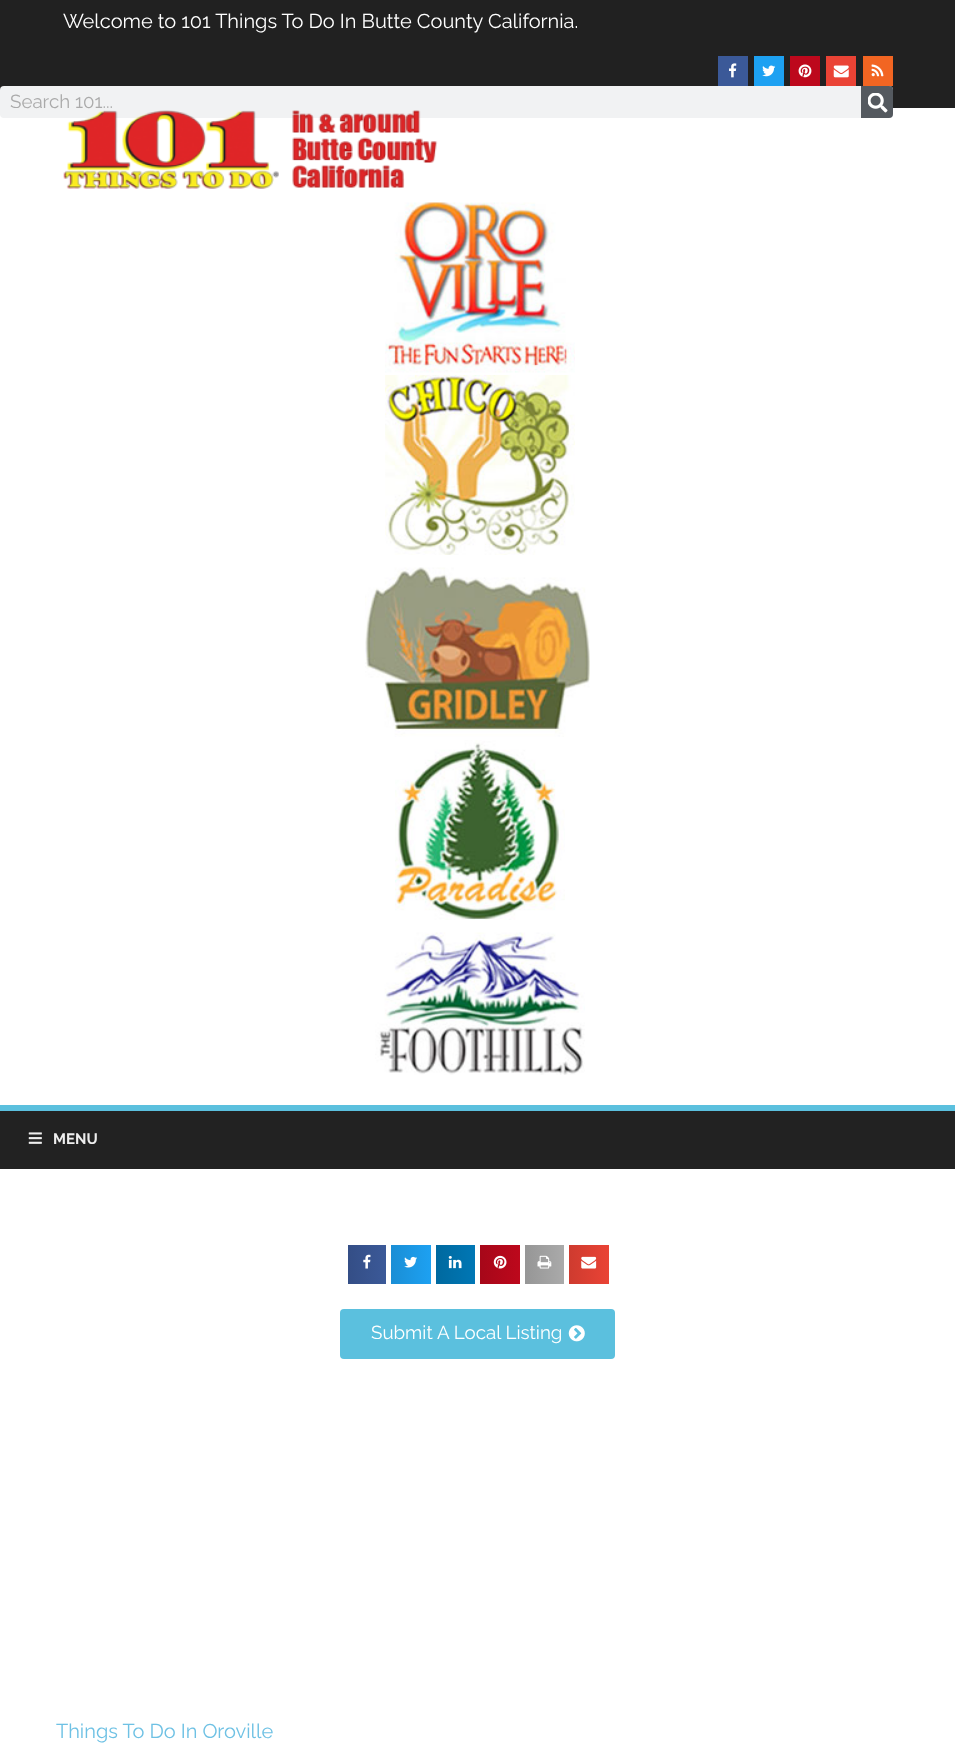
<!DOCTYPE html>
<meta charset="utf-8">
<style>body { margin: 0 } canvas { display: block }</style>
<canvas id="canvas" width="955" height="1760"></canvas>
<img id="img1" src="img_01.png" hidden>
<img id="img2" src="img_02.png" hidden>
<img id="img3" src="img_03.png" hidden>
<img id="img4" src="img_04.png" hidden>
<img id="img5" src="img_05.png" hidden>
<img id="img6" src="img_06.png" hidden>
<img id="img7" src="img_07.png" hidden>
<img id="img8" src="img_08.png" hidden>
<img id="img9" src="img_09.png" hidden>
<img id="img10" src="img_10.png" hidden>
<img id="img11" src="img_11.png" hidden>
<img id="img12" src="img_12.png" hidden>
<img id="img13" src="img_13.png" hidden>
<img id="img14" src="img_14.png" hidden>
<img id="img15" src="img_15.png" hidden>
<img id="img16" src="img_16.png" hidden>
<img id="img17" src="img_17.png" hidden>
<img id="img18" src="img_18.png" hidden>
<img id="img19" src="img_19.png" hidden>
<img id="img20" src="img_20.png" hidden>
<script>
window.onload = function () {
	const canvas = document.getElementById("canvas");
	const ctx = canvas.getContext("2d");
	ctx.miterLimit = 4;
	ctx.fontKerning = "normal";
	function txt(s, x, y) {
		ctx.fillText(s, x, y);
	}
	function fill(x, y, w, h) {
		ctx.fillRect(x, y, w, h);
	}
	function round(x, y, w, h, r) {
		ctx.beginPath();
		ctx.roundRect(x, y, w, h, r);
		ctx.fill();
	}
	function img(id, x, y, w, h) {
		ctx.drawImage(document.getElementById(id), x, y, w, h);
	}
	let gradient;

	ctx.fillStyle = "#FFFFFF";
	fill(0, 0, 955, 1760);
	ctx.fillStyle = "#212121";
	fill(0, 0, 955, 108);
	ctx.fillStyle = "#3B5998";
	fill(718, 56, 30, 30);
	img("img1", 729, 63, 8, 15);
	ctx.fillStyle = "#1DA1F2";
	fill(754, 56, 30, 30);
	img("img2", 762, 65, 14, 12);
	ctx.fillStyle = "#BD081C";
	fill(790, 56, 30, 30);
	img("img3", 798, 64, 14, 14);
	ctx.fillStyle = "#EA4335";
	fill(826, 56, 30, 30);
	img("img4", 833, 65, 16, 13);
	ctx.fillStyle = "#F26522";
	fill(863, 56, 30, 30);
	img("img5", 871, 64, 13, 13);
	ctx.fillStyle = "#F1F2F3";
	round(0, 86, 893, 32, 4);
	ctx.fillStyle = "#54595F";
	ctx.beginPath();
	ctx.roundRect(861, 86, 32, 32, [0, 4, 4, 0]);
	ctx.fill();
	img("img6", 868, 93, 20, 20);
	img("img7", 63, 110, 375, 79);
	img("img8", 385, 202, 190, 171);
	img("img9", 385, 375, 190, 180);
	img("img10", 365, 567, 225, 170);
	img("img11", 395, 740, 170, 180);
	img("img12", 375, 932, 210, 143);
	ctx.fillStyle = "#5BC0DE";
	fill(0, 1105, 955, 6);
	ctx.fillStyle = "#222222";
	fill(0, 1111, 955, 58);
	img("img13", 28, 1132, 14, 12);
	gradient = ctx.createLinearGradient(348, 1264, 386, 1264);
	gradient.addColorStop(0, "#344E86");
	gradient.addColorStop(1, "#3B5998");
	ctx.fillStyle = gradient;
	fill(348, 1245, 38, 39);
	img("img14", 363, 1254, 8, 15);
	gradient = ctx.createLinearGradient(391, 1264, 431, 1264);
	gradient.addColorStop(0, "#1A8ED5");
	gradient.addColorStop(1, "#1DA1F2");
	ctx.fillStyle = gradient;
	fill(391, 1245, 40, 39);
	img("img15", 404, 1256, 13, 12);
	gradient = ctx.createLinearGradient(436, 1264, 475, 1264);
	gradient.addColorStop(0, "#00699F");
	gradient.addColorStop(1, "#0077B5");
	ctx.fillStyle = gradient;
	fill(436, 1245, 39, 39);
	img("img16", 448, 1256, 14, 13);
	gradient = ctx.createLinearGradient(480, 1264, 520, 1264);
	gradient.addColorStop(0, "#A60719");
	gradient.addColorStop(1, "#BD081C");
	ctx.fillStyle = gradient;
	fill(480, 1245, 40, 39);
	img("img17", 493, 1255, 14, 14);
	gradient = ctx.createLinearGradient(525, 1264, 564, 1264);
	gradient.addColorStop(0, "#969696");
	gradient.addColorStop(1, "#AAAAAA");
	ctx.fillStyle = gradient;
	fill(525, 1245, 39, 39);
	img("img18", 537, 1255, 15, 14);
	gradient = ctx.createLinearGradient(569, 1264, 609, 1264);
	gradient.addColorStop(0, "#CE3B2F");
	gradient.addColorStop(1, "#EA4335");
	ctx.fillStyle = gradient;
	fill(569, 1245, 40, 39);
	img("img19", 581, 1256, 16, 13);
	ctx.fillStyle = "#5BC0DE";
	round(340, 1309, 275, 50, 4);
	img("img20", 568, 1325, 17, 17);
	ctx.font = "20px Raleway";
	ctx.fillStyle = "#FFFFFF";
	txt("Welcome to 101 Things To Do In Butte County California.", 63, 28);
	ctx.font = "18.75px Raleway";
	ctx.fillStyle = "#AAAAAA";
	txt("Search 101...", 10, 108);
	ctx.font = "bold 15px Raleway";
	ctx.fillStyle = "#EEEEEE";
	txt("MENU", 53, 1144);
	ctx.font = "18.75px Raleway";
	ctx.fillStyle = "#FFFFFF";
	txt("Submit A Local Listing", 371, 1339);
	ctx.font = "20px Raleway";
	ctx.fillStyle = "#6EC1E4";
	txt("Things To Do In Oroville", 56, 1738);
};
</script>
